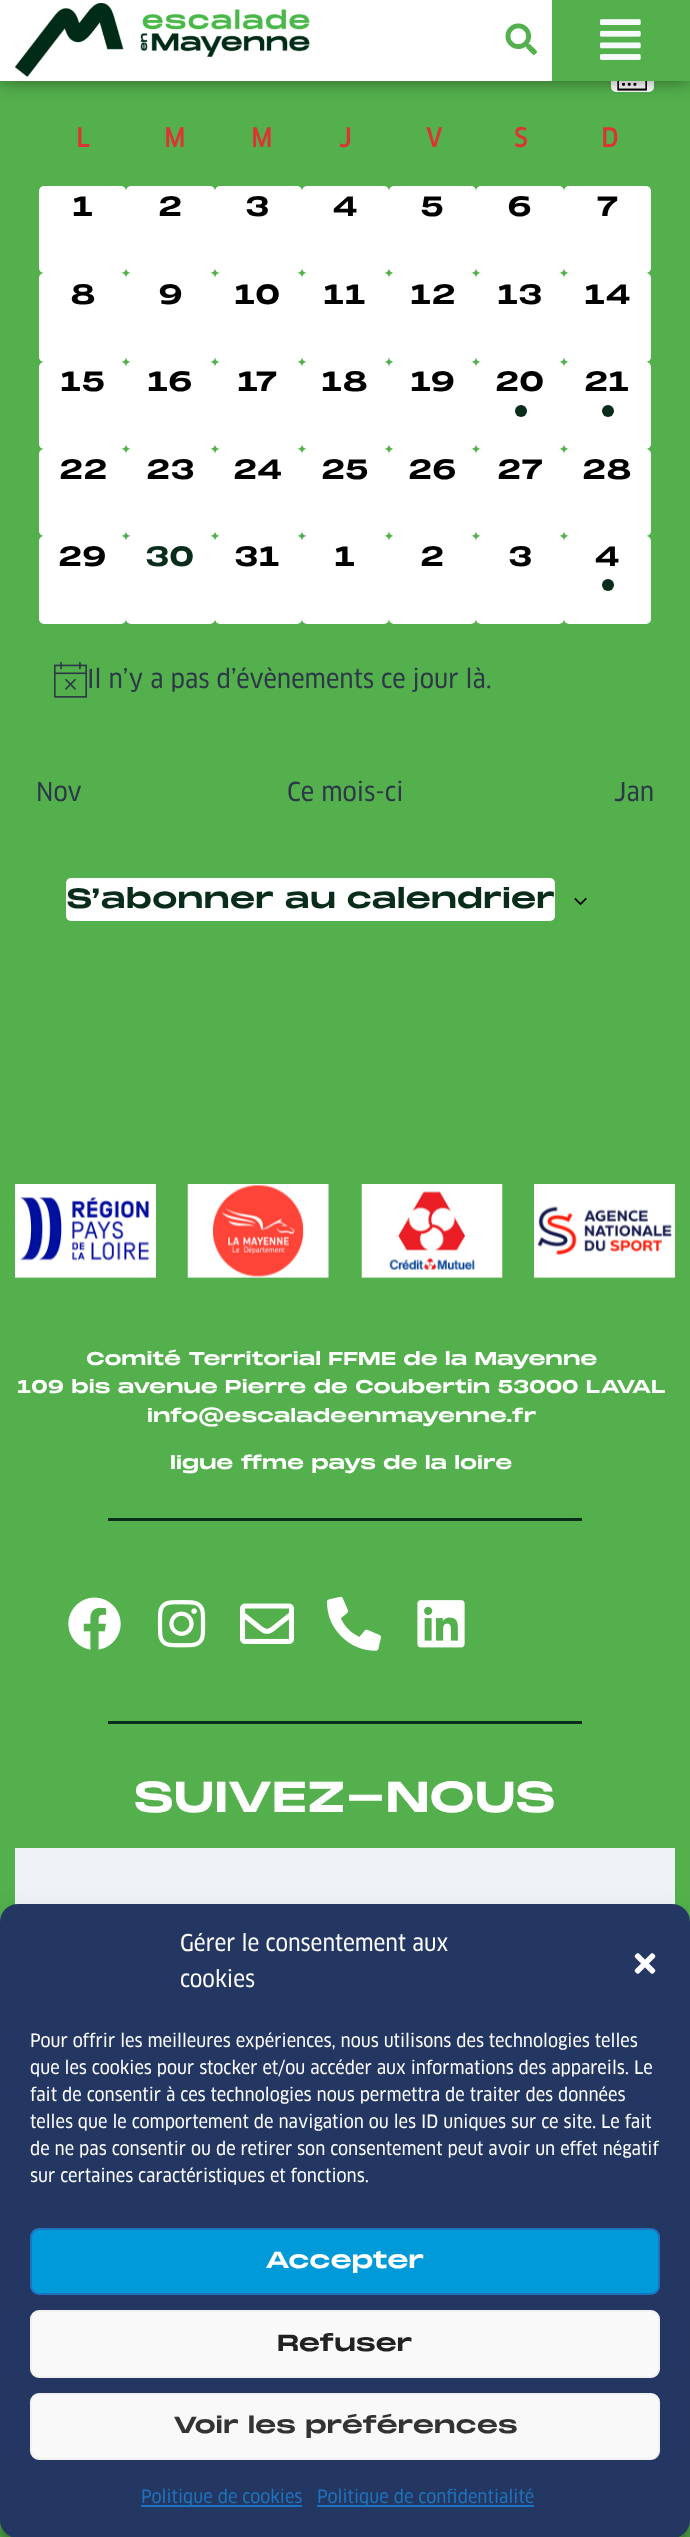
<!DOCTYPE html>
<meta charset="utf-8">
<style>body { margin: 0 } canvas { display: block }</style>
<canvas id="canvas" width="690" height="2537"></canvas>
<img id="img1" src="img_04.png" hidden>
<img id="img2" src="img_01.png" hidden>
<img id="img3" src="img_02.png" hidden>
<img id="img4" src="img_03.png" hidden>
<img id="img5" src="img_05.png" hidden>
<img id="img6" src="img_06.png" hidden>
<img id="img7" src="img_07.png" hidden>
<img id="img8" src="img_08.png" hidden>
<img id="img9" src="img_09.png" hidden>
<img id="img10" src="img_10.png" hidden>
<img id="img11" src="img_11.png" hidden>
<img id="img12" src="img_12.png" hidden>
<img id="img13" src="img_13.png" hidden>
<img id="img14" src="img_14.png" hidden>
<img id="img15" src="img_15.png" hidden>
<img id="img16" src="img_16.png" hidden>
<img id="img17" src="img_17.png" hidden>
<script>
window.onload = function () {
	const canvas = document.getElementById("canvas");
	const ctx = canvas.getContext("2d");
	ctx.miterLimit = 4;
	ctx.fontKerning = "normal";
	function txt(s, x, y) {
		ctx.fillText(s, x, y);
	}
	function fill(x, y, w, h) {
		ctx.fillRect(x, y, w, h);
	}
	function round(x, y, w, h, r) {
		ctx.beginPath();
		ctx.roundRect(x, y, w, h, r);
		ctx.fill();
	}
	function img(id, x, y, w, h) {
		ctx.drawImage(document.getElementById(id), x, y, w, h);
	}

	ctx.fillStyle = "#53B04C";
	fill(0, 0, 690, 2537);
	ctx.fillStyle = "#FFFFFF";
	round(611, 48, 43, 44, 5);
	img("img1", 617, 81, 30, 10);
	ctx.fillStyle = "rgba(0, 0, 0, 0.5)";
	ctx.filter = "blur(10px)";
	ctx.beginPath();
	ctx.rect(0, -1, 690, 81);
	ctx.fill();
	ctx.filter = "none";
	ctx.fillStyle = "#FFFFFF";
	fill(0, 0, 552, 81);
	img("img2", 15, 3, 295, 74);
	img("img3", 505, 23, 32, 32);
	ctx.fillStyle = "#53B04C";
	fill(552, 0, 138, 81);
	img("img4", 600, 19, 41, 41);
	ctx.fillStyle = "#FFFFFF";
	round(39, 186, 87, 87, 5);
	round(126, 186, 89, 87, 5);
	round(215, 186, 87, 87, 5);
	round(302, 186, 87, 87, 5);
	round(389, 186, 87, 87, 5);
	round(476, 186, 88, 87, 5);
	round(564, 186, 87, 87, 5);
	round(39, 273, 87, 89, 5);
	round(126, 273, 89, 89, 5);
	round(215, 273, 87, 89, 5);
	round(302, 273, 87, 89, 5);
	round(389, 273, 87, 89, 5);
	round(476, 273, 88, 89, 5);
	round(564, 273, 87, 89, 5);
	round(39, 362, 87, 87, 5);
	round(126, 362, 89, 87, 5);
	round(215, 362, 87, 87, 5);
	round(302, 362, 87, 87, 5);
	round(389, 362, 87, 87, 5);
	round(476, 362, 88, 87, 5);
	ctx.fillStyle = "#0A2D1B";
	ctx.beginPath();
	ctx.arc(521, 411, 6, 0, Math.PI * 2);
	ctx.fill();
	ctx.fillStyle = "#FFFFFF";
	round(564, 362, 87, 87, 5);
	ctx.fillStyle = "#0A2D1B";
	ctx.beginPath();
	ctx.arc(608, 411, 6, 0, Math.PI * 2);
	ctx.fill();
	ctx.fillStyle = "#FFFFFF";
	round(39, 449, 87, 87, 5);
	round(126, 449, 89, 87, 5);
	round(215, 449, 87, 87, 5);
	round(302, 449, 87, 87, 5);
	round(389, 449, 87, 87, 5);
	round(476, 449, 88, 87, 5);
	round(564, 449, 87, 87, 5);
	round(39, 536, 87, 88, 5);
	round(126, 536, 89, 88, 5);
	round(215, 536, 87, 88, 5);
	round(302, 536, 87, 88, 5);
	round(389, 536, 87, 88, 5);
	round(476, 536, 88, 88, 5);
	round(564, 536, 87, 88, 5);
	ctx.fillStyle = "#0A2D1B";
	ctx.beginPath();
	ctx.arc(608, 585, 6, 0, Math.PI * 2);
	ctx.fill();
	img("img5", 54, 662, 33, 36);
	ctx.fillStyle = "#FFFFFF";
	round(66, 878, 489, 43, 5);
	img("img6", 574, 897, 13, 9);
	img("img7", 15, 1184, 141, 94);
	img("img8", 187, 1184, 142, 94);
	img("img9", 361, 1184, 142, 94);
	img("img10", 534, 1184, 141, 94);
	ctx.fillStyle = "#0A2D1B";
	fill(108, 1518, 474, 3);
	img("img11", 68, 1597, 53, 53);
	img("img12", 157, 1600, 49, 48);
	img("img13", 240, 1603, 54, 41);
	img("img14", 327, 1596, 54, 55);
	img("img15", 417, 1600, 48, 48);
	fill(108, 1721, 474, 3);
	img("img16", 15, 1848, 660, 57);
	ctx.fillStyle = "rgba(0, 0, 0, 0.23)";
	ctx.filter = "blur(4.5px)";
	ctx.beginPath();
	ctx.roundRect(0, 1913, 690, 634, 18);
	ctx.fill();
	ctx.filter = "none";
	ctx.fillStyle = "rgba(0, 0, 0, 0.19)";
	ctx.filter = "blur(15px)";
	ctx.beginPath();
	ctx.roundRect(0, 1919, 690, 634, 18);
	ctx.fill();
	ctx.filter = "none";
	ctx.fillStyle = "#243762";
	round(0, 1904, 690, 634, 18);
	img("img17", 634, 1953, 22, 21);
	ctx.fillStyle = "#009AD9";
	ctx.beginPath();
	ctx.roundRect(31, 2229, 628, 65, 8);
	ctx.fill();
	ctx.strokeStyle = "#1E73BE";
	ctx.lineWidth = 2;
	ctx.stroke();
	ctx.fillStyle = "#F9F9F9";
	ctx.beginPath();
	ctx.roundRect(31, 2311, 628, 66, 8);
	ctx.fill();
	ctx.strokeStyle = "#F2F2F2";
	ctx.stroke();
	ctx.beginPath();
	ctx.roundRect(31, 2394, 628, 65, 8);
	ctx.fill();
	ctx.stroke();
	ctx.fillStyle = "#1E73BE";
	fill(141, 2505, 161, 2);
	fill(317, 2505, 217, 2);
	ctx.font = "bold 25.5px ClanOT";
	ctx.fillStyle = "#DD3333";
	txt("L", 76, 147);
	txt("M", 164, 147);
	txt("M", 251, 147);
	txt("J", 339, 147);
	txt("V", 426, 147);
	txt("S", 514, 147);
	txt("D", 601, 147);
	ctx.font = "bold 27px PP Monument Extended";
	ctx.fillStyle = "#000000";
	txt("1", 72, 216);
	txt("2", 158, 216);
	txt("3", 245, 216);
	txt("4", 332, 216);
	txt("5", 420, 216);
	txt("6", 507, 216);
	txt("7", 596, 216);
	txt("8", 70, 304);
	txt("9", 158, 304);
	txt("10", 234, 304);
	txt("11", 323, 304);
	txt("12", 410, 304);
	txt("13", 497, 304);
	txt("14", 584, 304);
	txt("15", 60, 391);
	txt("16", 147, 391);
	txt("17", 237, 391);
	txt("18", 321, 391);
	txt("19", 410, 391);
	txt("20", 495, 391);
	txt("21", 584, 391);
	txt("22", 59, 479);
	txt("23", 146, 479);
	txt("24", 233, 479);
	txt("25", 321, 479);
	txt("26", 408, 479);
	txt("27", 497, 479);
	txt("28", 582, 479);
	txt("29", 58, 566);
	ctx.fillStyle = "#0A2D1B";
	txt("30", 145, 566);
	ctx.fillStyle = "#000000";
	txt("31", 234, 566);
	txt("1", 334, 566);
	txt("2", 420, 566);
	txt("3", 508, 566);
	txt("4", 594, 566);
	ctx.font = "25.5px ClanOT";
	ctx.fillStyle = "#2D3748";
	txt("Il n’y a pas d’évènements ce jour là.", 87, 688);
	txt("Nov", 36, 801);
	txt("Ce mois-ci", 287, 801);
	txt("Jan", 614, 801);
	ctx.font = "bold 27px PP Monument Extended";
	ctx.fillStyle = "#0A2D1B";
	txt("S’abonner au calendrier", 66, 908);
	ctx.font = "bold 18px PP Monument Extended";
	ctx.fillStyle = "#FFFFFF";
	txt("Comité Territorial FFME de la Mayenne", 86, 1365);
	txt("109 bis avenue Pierre de Coubertin 53000 LAVAL", 17, 1393);
	txt("info@escaladeenmayenne.fr", 147, 1422);
	txt("ligue ffme pays de la loire", 170, 1469);
	ctx.font = "bold 42px PP Monument Extended";
	txt("SUIVEZ-NOUS", 133, 1812);
	ctx.font = "22.5px ClanOT";
	txt("Gérer le consentement aux", 180, 1951);
	txt("cookies", 180, 1987);
	ctx.font = "18px ClanOT";
	txt("Pour offrir les meilleures expériences, nous utilisons des technologies telles", 30, 2047);
	txt("que les cookies pour stocker et/ou accéder aux informations des appareils. Le", 30, 2074);
	txt("fait de consentir à ces technologies nous permettra de traiter des données", 30, 2101);
	txt("telles que le comportement de navigation ou les ID uniques sur ce site. Le fait", 30, 2128);
	txt("de ne pas consentir ou de retirer son consentement peut avoir un effet négatif", 30, 2155);
	txt("sur certaines caractéristiques et fonctions.", 30, 2182);
	ctx.font = "bold 22.5px PP Monument Extended";
	txt("Accepter", 265, 2268);
	ctx.fillStyle = "#222222";
	txt("Refuser", 277, 2351);
	ctx.fillStyle = "#333333";
	txt("Voir les préférences", 173, 2433);
	ctx.font = "18px ClanOT";
	ctx.fillStyle = "#1E73BE";
	txt("Politique de cookies", 141, 2503);
	txt("Politique de confidentialité", 317, 2503);
};
</script>
